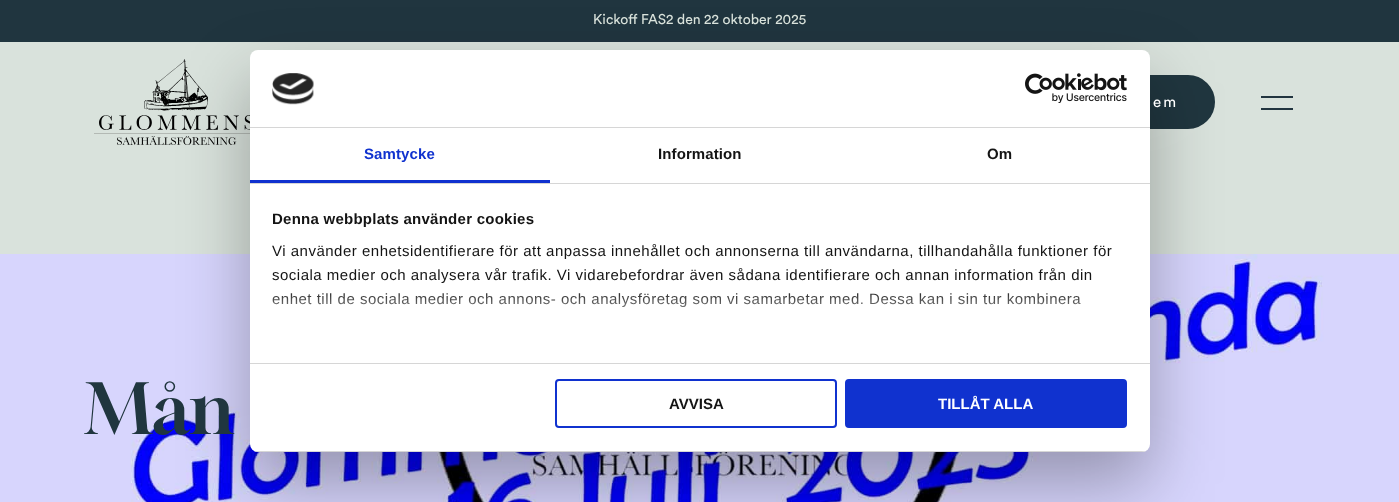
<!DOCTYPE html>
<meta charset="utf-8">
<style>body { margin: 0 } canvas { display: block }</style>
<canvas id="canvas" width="1399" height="502"></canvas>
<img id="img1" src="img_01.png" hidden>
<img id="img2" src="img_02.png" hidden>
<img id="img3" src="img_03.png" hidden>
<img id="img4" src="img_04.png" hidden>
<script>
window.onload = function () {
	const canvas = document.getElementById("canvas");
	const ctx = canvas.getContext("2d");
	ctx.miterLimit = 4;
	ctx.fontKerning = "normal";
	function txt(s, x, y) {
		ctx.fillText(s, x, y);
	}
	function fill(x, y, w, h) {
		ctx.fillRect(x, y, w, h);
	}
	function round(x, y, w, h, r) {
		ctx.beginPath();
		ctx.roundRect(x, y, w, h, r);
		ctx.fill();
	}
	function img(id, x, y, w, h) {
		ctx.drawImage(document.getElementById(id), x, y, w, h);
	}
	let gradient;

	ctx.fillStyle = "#D9E2DC";
	fill(0, 0, 1399, 502);
	ctx.fillStyle = "#20353F";
	fill(0, 0, 1399, 42);
	img("img1", 94, 59, 156, 86);
	ctx.fillStyle = "#20363F";
	ctx.beginPath();
	ctx.roundRect(1049, 76, 165, 52, 26);
	ctx.fill();
	ctx.strokeStyle = "#20363F";
	ctx.lineWidth = 2;
	ctx.stroke();
	ctx.fillStyle = "#21343F";
	fill(1261, 96, 32, 2);
	fill(1261, 108, 32, 2);
	img("img2", 0, 254, 1399, 248);
	ctx.fillStyle = "rgba(0, 0, 0, 0.3)";
	ctx.filter = "blur(34px)";
	ctx.beginPath();
	ctx.roundRect(250, 82, 900, 402, 8);
	ctx.fill();
	ctx.filter = "none";
	ctx.fillStyle = "#FFFFFF";
	round(250, 50, 900, 402, 8);
	ctx.fillStyle = "#D6D6D6";
	fill(250, 127, 900, 1);
	img("img3", 272, 73, 42, 32);
	img("img4", 1025, 73, 102, 30);
	fill(250, 183, 900, 1);
	ctx.fillStyle = "#1032CF";
	fill(250, 180, 300, 3);
	ctx.fillStyle = "#D6D6D6";
	fill(250, 363, 900, 1);
	ctx.save();
	ctx.beginPath();
	ctx.roundRect(250, 50, 900, 402, 8);
	ctx.clip();
	fill(250, 451, 900, 1);
	ctx.restore();
	ctx.beginPath();
	ctx.roundRect(556, 380, 280, 47, 3);
	ctx.strokeStyle = "#1032CF";
	ctx.stroke();
	ctx.fillStyle = "#1032CF";
	ctx.beginPath();
	ctx.roundRect(846, 380, 280, 47, 3);
	ctx.fill();
	ctx.stroke();
	ctx.font = "italic 14px Circular";
	ctx.fillStyle = "#D9E2DB";
	txt("Kickoff FAS2 den 22 oktober 2025", 593, 24);
	ctx.letterSpacing = "2px";
	ctx.font = "italic 15px Circular";
	ctx.fillStyle = "#FFFFFF";
	txt("em", 1153, 107);
	ctx.letterSpacing = "0px";
	ctx.font = "69px Gloock";
	ctx.fillStyle = "#20363F";
	txt("Mån", 86, 434);
	ctx.letterSpacing = "0.1px";
	ctx.font = "bold 15px Liberation Sans";
	ctx.fillStyle = "#1032CF";
	txt("Samtycke", 364, 159);
	ctx.fillStyle = "#141414";
	txt("Information", 658, 159);
	txt("Om", 987, 159);
	ctx.letterSpacing = "0.25px";
	txt("Denna webbplats använder cookies", 272, 224);
	ctx.letterSpacing = "0.5px";
	ctx.font = "15px Liberation Sans";
	txt("Vi använder enhetsidentifierare för att anpassa innehållet och annonserna till användarna, tillhandahålla funktioner för", 272, 256);
	txt("sociala medier och analysera vår trafik. Vi vidarebefordrar även sådana identifierare och annan information från din", 272, 280);
	txt("enhet till de sociala medier och annons- och analysföretag som vi samarbetar med. Dessa kan i sin tur kombinera", 272, 304);
	gradient = ctx.createLinearGradient(690, 363, 690, 288);
	gradient.addColorStop(0, "#FFFFFF");
	gradient.addColorStop(0.5, "rgba(255, 255, 255, 0.8)");
	gradient.addColorStop(1, "rgba(255, 255, 255, 0)");
	ctx.fillStyle = gradient;
	fill(272, 293, 809, 15);
	ctx.letterSpacing = "0px";
	ctx.font = "bold 15px Liberation Sans";
	ctx.fillStyle = "#141414";
	txt("AVVISA", 669, 409);
	ctx.fillStyle = "#FFFFFF";
	txt("TILLÅT ALLA", 938, 409);
};
</script>
